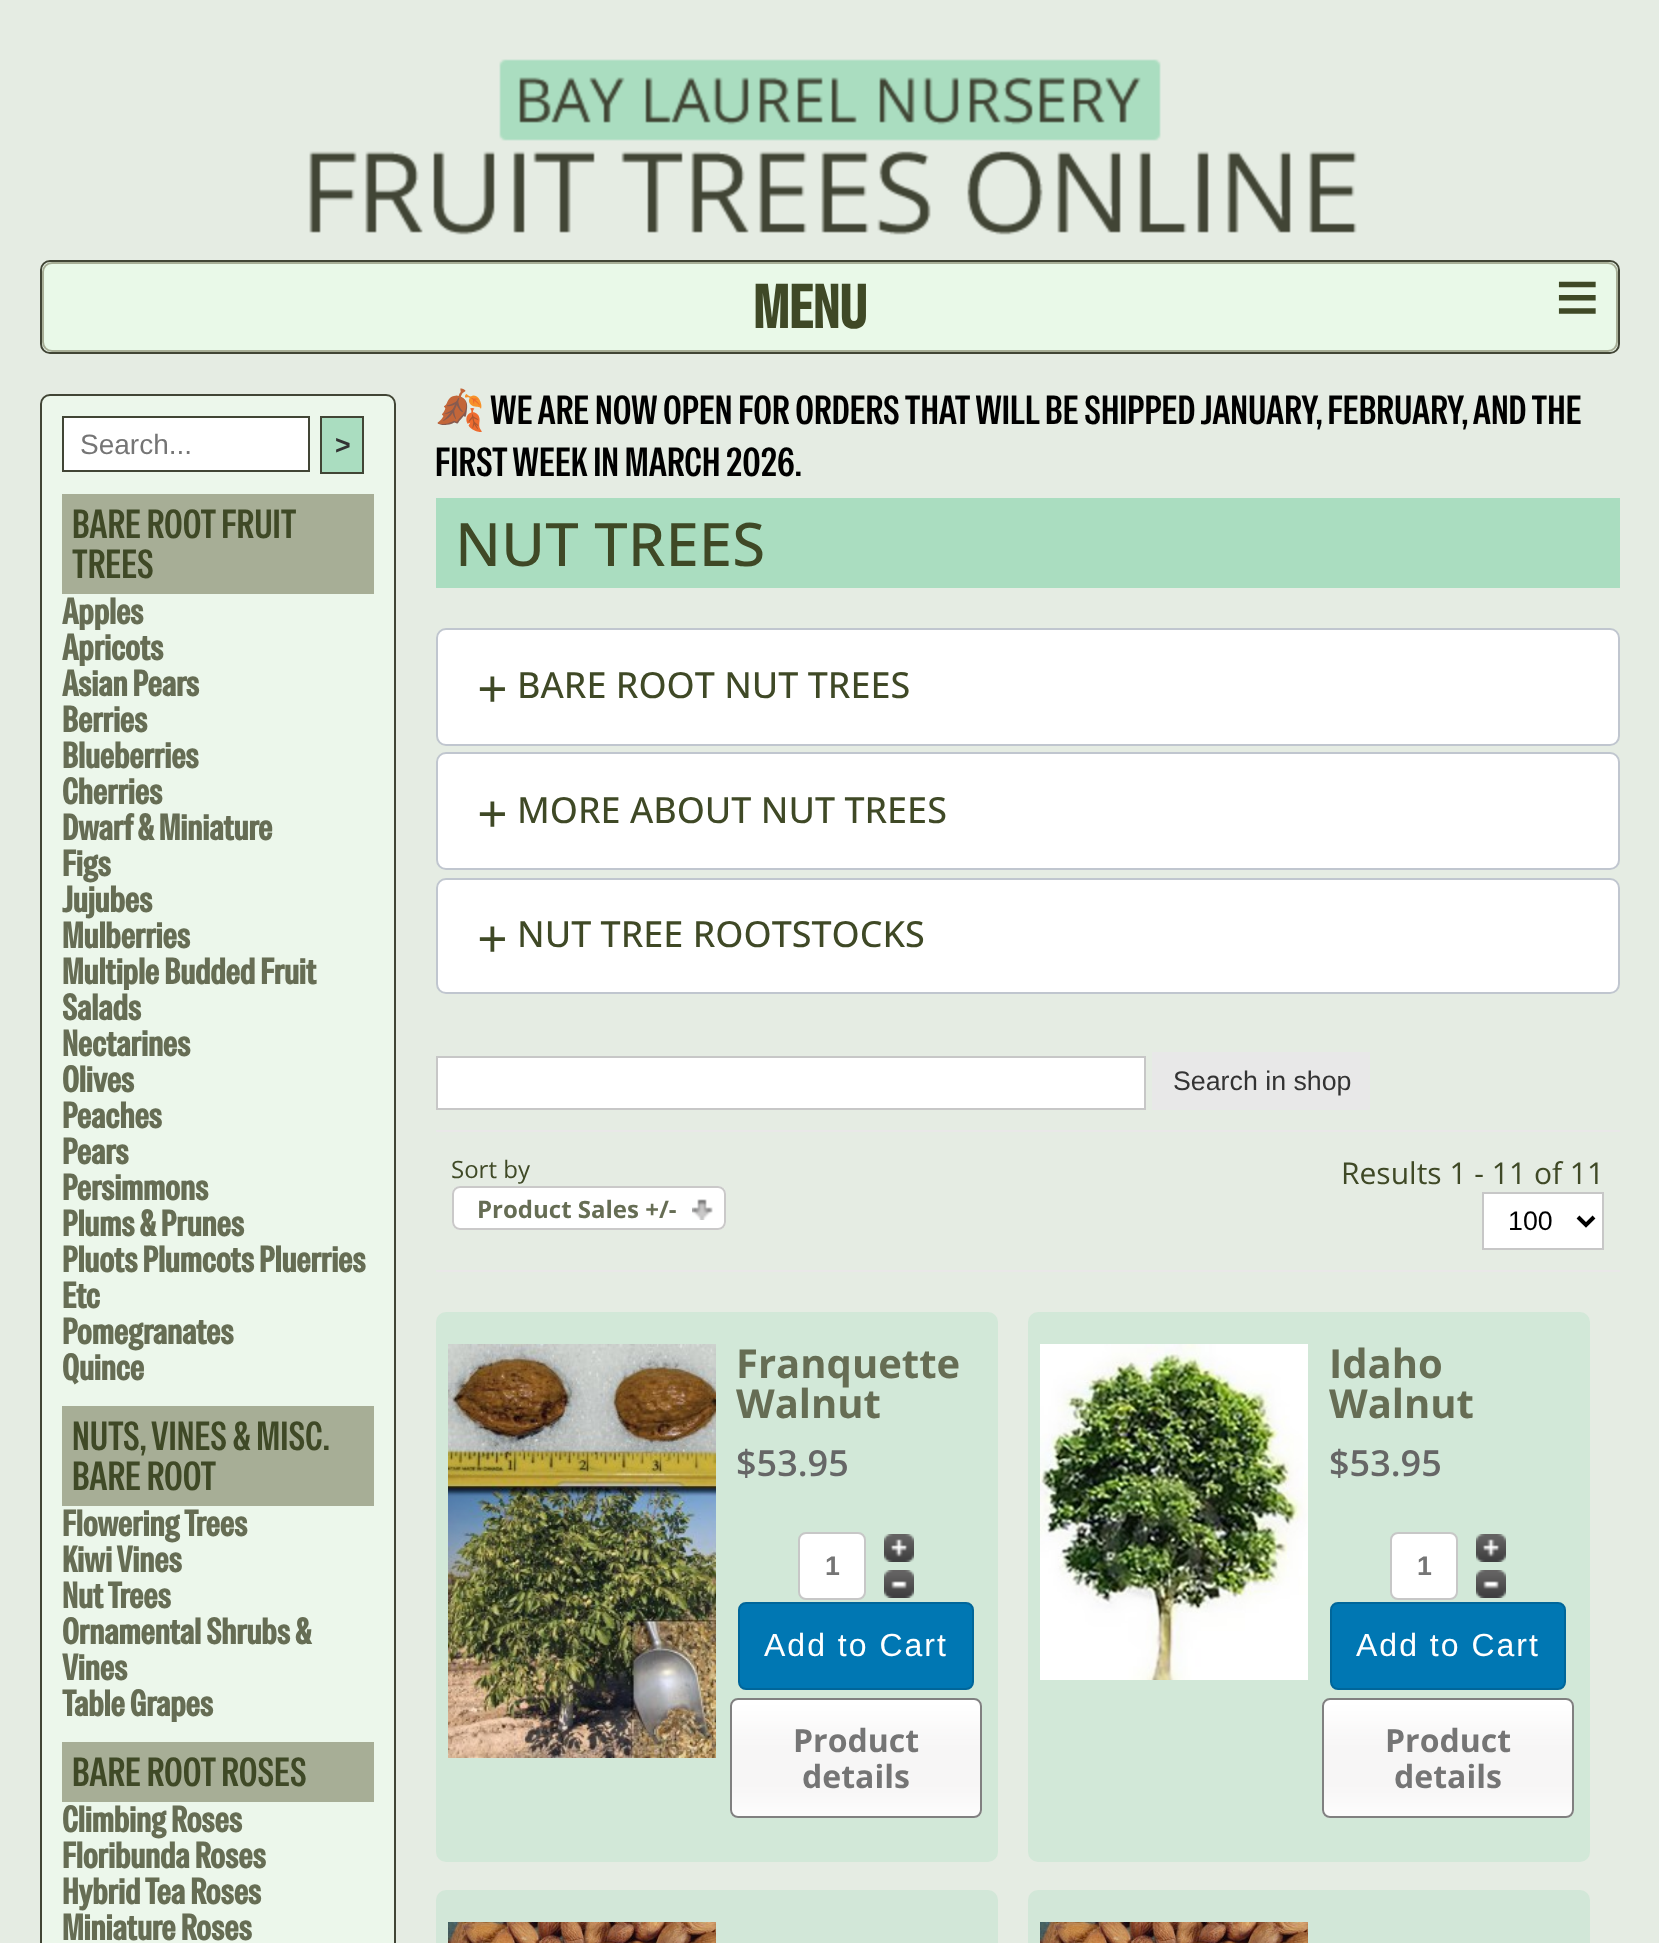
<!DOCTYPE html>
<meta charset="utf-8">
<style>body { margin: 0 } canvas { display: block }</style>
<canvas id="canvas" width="1659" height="1943"></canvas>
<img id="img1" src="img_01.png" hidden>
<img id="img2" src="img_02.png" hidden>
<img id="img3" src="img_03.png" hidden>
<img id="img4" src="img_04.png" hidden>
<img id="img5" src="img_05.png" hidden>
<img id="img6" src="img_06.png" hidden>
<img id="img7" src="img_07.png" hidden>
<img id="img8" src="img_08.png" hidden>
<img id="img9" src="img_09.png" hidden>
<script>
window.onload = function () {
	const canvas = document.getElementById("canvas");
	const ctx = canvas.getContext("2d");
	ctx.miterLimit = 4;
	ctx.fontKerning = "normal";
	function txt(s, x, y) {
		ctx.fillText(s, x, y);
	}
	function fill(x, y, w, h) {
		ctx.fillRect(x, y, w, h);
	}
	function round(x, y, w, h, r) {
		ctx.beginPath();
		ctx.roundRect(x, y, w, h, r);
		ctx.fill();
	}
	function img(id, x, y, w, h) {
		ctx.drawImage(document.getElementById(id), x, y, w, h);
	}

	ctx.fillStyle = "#E5ECE3";
	fill(0, 0, 1659, 1943);
	img("img1", 309, 59, 1048, 176);
	ctx.fillStyle = "#ECF7EB";
	ctx.beginPath();
	ctx.roundRect(41, 261, 1578, 92, 9);
	ctx.fill();
	ctx.strokeStyle = "#414535";
	ctx.lineWidth = 2;
	ctx.stroke();
	ctx.fillStyle = "#E9F9E8";
	ctx.beginPath();
	ctx.roundRect(43, 263, 1574, 88, 9);
	ctx.fill();
	ctx.strokeStyle = "#A7AE96";
	ctx.stroke();
	ctx.fillStyle = "#ECF7EB";
	ctx.beginPath();
	ctx.roundRect(41, 395, 354, 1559, 9);
	ctx.fill();
	ctx.strokeStyle = "#414535";
	ctx.stroke();
	ctx.fillStyle = "#FFFFFF";
	ctx.beginPath();
	ctx.rect(63, 417, 246, 54);
	ctx.fill();
	ctx.stroke();
	ctx.fillStyle = "#AADDC0";
	ctx.beginPath();
	ctx.rect(321, 417, 42, 56);
	ctx.fill();
	ctx.stroke();
	ctx.fillStyle = "#A7AE96";
	fill(62, 494, 312, 100);
	fill(62, 1406, 312, 100);
	fill(62, 1742, 312, 60);
	ctx.fillStyle = "#AADDC0";
	fill(436, 498, 1184, 90);
	ctx.fillStyle = "#FFFFFF";
	ctx.beginPath();
	ctx.roundRect(437, 629, 1182, 116, 9);
	ctx.fill();
	ctx.strokeStyle = "#C0C6CF";
	ctx.stroke();
	ctx.beginPath();
	ctx.roundRect(437, 753, 1182, 116, 9);
	ctx.fill();
	ctx.stroke();
	ctx.beginPath();
	ctx.roundRect(437, 879, 1182, 114, 9);
	ctx.fill();
	ctx.stroke();
	ctx.beginPath();
	ctx.rect(437, 1057, 708, 52);
	ctx.fill();
	ctx.strokeStyle = "#C7C7C7";
	ctx.stroke();
	ctx.fillStyle = "#E8E8E8";
	fill(1152, 1052, 218, 58);
	ctx.fillStyle = "#E9E8E8";
	fill(436, 1130, 1184, 2);
	fill(436, 1270, 1184, 2);
	ctx.fillStyle = "#FFFFFF";
	round(452, 1186, 274, 44, 8);
	img("img2", 692, 1199, 21, 21);
	ctx.beginPath();
	ctx.roundRect(453, 1187, 272, 42, 7);
	ctx.strokeStyle = "#CAC9C9";
	ctx.stroke();
	ctx.beginPath();
	ctx.rect(1483, 1193, 120, 56);
	ctx.fill();
	ctx.strokeStyle = "#C7C7C7";
	ctx.stroke();
	ctx.beginPath();
	ctx.moveTo(1578, 1217);
	ctx.lineTo(1586, 1225);
	ctx.lineTo(1594, 1217);
	ctx.strokeStyle = "#000000";
	ctx.lineWidth = 4;
	ctx.stroke();
	ctx.fillStyle = "#D2E8D8";
	round(436, 1312, 562, 550, 10);
	img("img3", 448, 1344, 268, 414);
	ctx.fillStyle = "#FFFFFF";
	ctx.beginPath();
	ctx.roundRect(799, 1533, 66, 66, 7);
	ctx.fill();
	ctx.strokeStyle = "#C7C7C7";
	ctx.lineWidth = 2;
	ctx.stroke();
	img("img4", 884, 1534, 30, 28);
	img("img5", 884, 1570, 30, 28);
	ctx.fillStyle = "#0077B3";
	ctx.beginPath();
	ctx.roundRect(739, 1603, 234, 86, 7);
	ctx.fill();
	ctx.strokeStyle = "#00669A";
	ctx.stroke();
	img("img6", 730, 1700, 252, 118);
	ctx.beginPath();
	ctx.roundRect(731, 1699, 250, 118, 7);
	ctx.strokeStyle = "#808080";
	ctx.stroke();
	ctx.fillStyle = "#D2E8D8";
	round(1028, 1312, 562, 550, 10);
	img("img7", 1040, 1344, 268, 336);
	ctx.fillStyle = "#FFFFFF";
	ctx.beginPath();
	ctx.roundRect(1391, 1533, 66, 66, 7);
	ctx.fill();
	ctx.strokeStyle = "#C7C7C7";
	ctx.stroke();
	img("img4", 1476, 1534, 30, 28);
	img("img5", 1476, 1570, 30, 28);
	ctx.fillStyle = "#0077B3";
	ctx.beginPath();
	ctx.roundRect(1331, 1603, 234, 86, 7);
	ctx.fill();
	ctx.strokeStyle = "#00669A";
	ctx.stroke();
	img("img6", 1322, 1700, 252, 118);
	ctx.beginPath();
	ctx.roundRect(1323, 1699, 250, 118, 7);
	ctx.strokeStyle = "#808080";
	ctx.stroke();
	ctx.fillStyle = "#D2E7D8";
	round(436, 1890, 562, 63, 10);
	img("img8", 448, 1922, 268, 21);
	round(1028, 1890, 562, 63, 10);
	img("img9", 1040, 1922, 268, 21);
	ctx.font = "bold 60px Special Gothic Condensed One";
	ctx.fillStyle = "#3F4926";
	txt("MENU", 753, 328);
	ctx.font = "bold 79px Liberation Serif";
	txt("≡", 1555, 324);
	ctx.font = "28px Liberation Sans";
	ctx.fillStyle = "#757575";
	txt("Search...", 80, 454);
	ctx.font = "bold 26.75px Liberation Sans";
	ctx.fillStyle = "#333333";
	txt(">", 335, 454);
	ctx.font = "40px Special Gothic Condensed One";
	ctx.fillStyle = "#3F4926";
	txt("BARE ROOT FRUIT", 72, 538);
	txt("TREES", 72, 578);
	ctx.font = "bold 36px Special Gothic Condensed One";
	ctx.fillStyle = "#666D54";
	txt("Apples", 62, 624);
	txt("Apricots", 62, 660);
	txt("Asian Pears", 62, 696);
	txt("Berries", 62, 732);
	txt("Blueberries", 62, 768);
	txt("Cherries", 62, 804);
	txt("Dwarf & Miniature", 62, 840);
	txt("Figs", 62, 876);
	txt("Jujubes", 62, 912);
	txt("Mulberries", 62, 948);
	txt("Multiple Budded Fruit", 62, 984);
	txt("Salads", 62, 1020);
	txt("Nectarines", 62, 1056);
	txt("Olives", 62, 1092);
	txt("Peaches", 62, 1128);
	txt("Pears", 62, 1164);
	txt("Persimmons", 62, 1200);
	txt("Plums & Prunes", 62, 1236);
	txt("Pluots Plumcots Pluerries", 62, 1272);
	txt("Etc", 62, 1308);
	txt("Pomegranates", 62, 1344);
	txt("Quince", 62, 1380);
	ctx.font = "40px Special Gothic Condensed One";
	ctx.fillStyle = "#3F4926";
	txt("NUTS, VINES & MISC.", 72, 1450);
	txt("BARE ROOT", 72, 1490);
	ctx.font = "bold 36px Special Gothic Condensed One";
	ctx.fillStyle = "#666D54";
	txt("Flowering Trees", 62, 1536);
	txt("Kiwi Vines", 62, 1572);
	txt("Nut Trees", 62, 1608);
	txt("Ornamental Shrubs &", 62, 1644);
	txt("Vines", 62, 1680);
	txt("Table Grapes", 62, 1716);
	ctx.font = "40px Special Gothic Condensed One";
	ctx.fillStyle = "#3F4926";
	txt("BARE ROOT ROSES", 72, 1786);
	ctx.font = "bold 36px Special Gothic Condensed One";
	ctx.fillStyle = "#666D54";
	txt("Climbing Roses", 62, 1832);
	txt("Floribunda Roses", 62, 1868);
	txt("Hybrid Tea Roses", 62, 1904);
	txt("Miniature Roses", 62, 1940);
	ctx.font = "40px Noto Color Emoji";
	ctx.fillStyle = "#000000";
	txt("🍂", 435, 424);
	ctx.font = "40px Special Gothic Condensed One";
	txt("WE ARE NOW OPEN FOR ORDERS THAT WILL BE SHIPPED JANUARY, FEBRUARY, AND THE", 490, 424);
	txt("FIRST WEEK IN MARCH 2026.", 435, 476);
	ctx.font = "500 60px Open Sans";
	ctx.fillStyle = "#3F4926";
	txt("NUT TREES", 455, 566);
	ctx.font = "bold 54px Liberation Serif";
	txt("+", 477, 707);
	ctx.font = "500 36px Open Sans";
	txt("BARE ROOT NUT TREES", 517, 698);
	ctx.font = "bold 54px Liberation Serif";
	txt("+", 477, 832);
	ctx.font = "500 36px Open Sans";
	txt("MORE ABOUT NUT TREES", 517, 823);
	ctx.font = "bold 54px Liberation Serif";
	txt("+", 477, 957);
	ctx.font = "500 36px Open Sans";
	txt("NUT TREE ROOTSTOCKS", 517, 947);
	ctx.font = "26.75px Liberation Sans";
	ctx.fillStyle = "#333333";
	txt("Search in shop", 1173, 1090);
	ctx.font = "24px Open Sans";
	ctx.fillStyle = "#3F4926";
	txt("Sort by", 451, 1178);
	ctx.font = "bold 24px Open Sans";
	ctx.fillStyle = "#666D54";
	txt("Product Sales +/-", 477, 1218);
	ctx.font = "30px Open Sans";
	ctx.fillStyle = "#3F4926";
	txt("Results 1 - 11 of 11", 1341, 1184);
	ctx.font = "26.75px Liberation Sans";
	ctx.fillStyle = "#000000";
	txt("100", 1508, 1230);
	ctx.font = "bold 40px Open Sans";
	ctx.fillStyle = "#666D54";
	txt("Franquette", 736, 1378);
	txt("Walnut", 736, 1418);
	ctx.font = "600 36px Open Sans";
	ctx.fillStyle = "#666666";
	txt("$53.95", 736, 1476);
	ctx.font = "bold 26.75px Liberation Sans";
	ctx.fillStyle = "#757575";
	txt("1", 825, 1575);
	ctx.letterSpacing = "2px";
	ctx.font = "32px Liberation Sans";
	ctx.fillStyle = "#FFFFFF";
	txt("Add to Cart", 764, 1656);
	ctx.letterSpacing = "0px";
	ctx.font = "bold 32px Open Sans";
	ctx.fillStyle = "#757575";
	txt("Product", 793, 1752);
	txt("details", 802, 1788);
	ctx.font = "bold 40px Open Sans";
	ctx.fillStyle = "#666D54";
	txt("Idaho", 1329, 1378);
	txt("Walnut", 1329, 1418);
	ctx.font = "600 36px Open Sans";
	ctx.fillStyle = "#666666";
	txt("$53.95", 1329, 1476);
	ctx.font = "bold 26.75px Liberation Sans";
	ctx.fillStyle = "#757575";
	txt("1", 1417, 1575);
	ctx.letterSpacing = "2px";
	ctx.font = "32px Liberation Sans";
	ctx.fillStyle = "#FFFFFF";
	txt("Add to Cart", 1356, 1656);
	ctx.letterSpacing = "0px";
	ctx.font = "bold 32px Open Sans";
	ctx.fillStyle = "#757575";
	txt("Product", 1385, 1752);
	txt("details", 1394, 1788);
};
</script>
